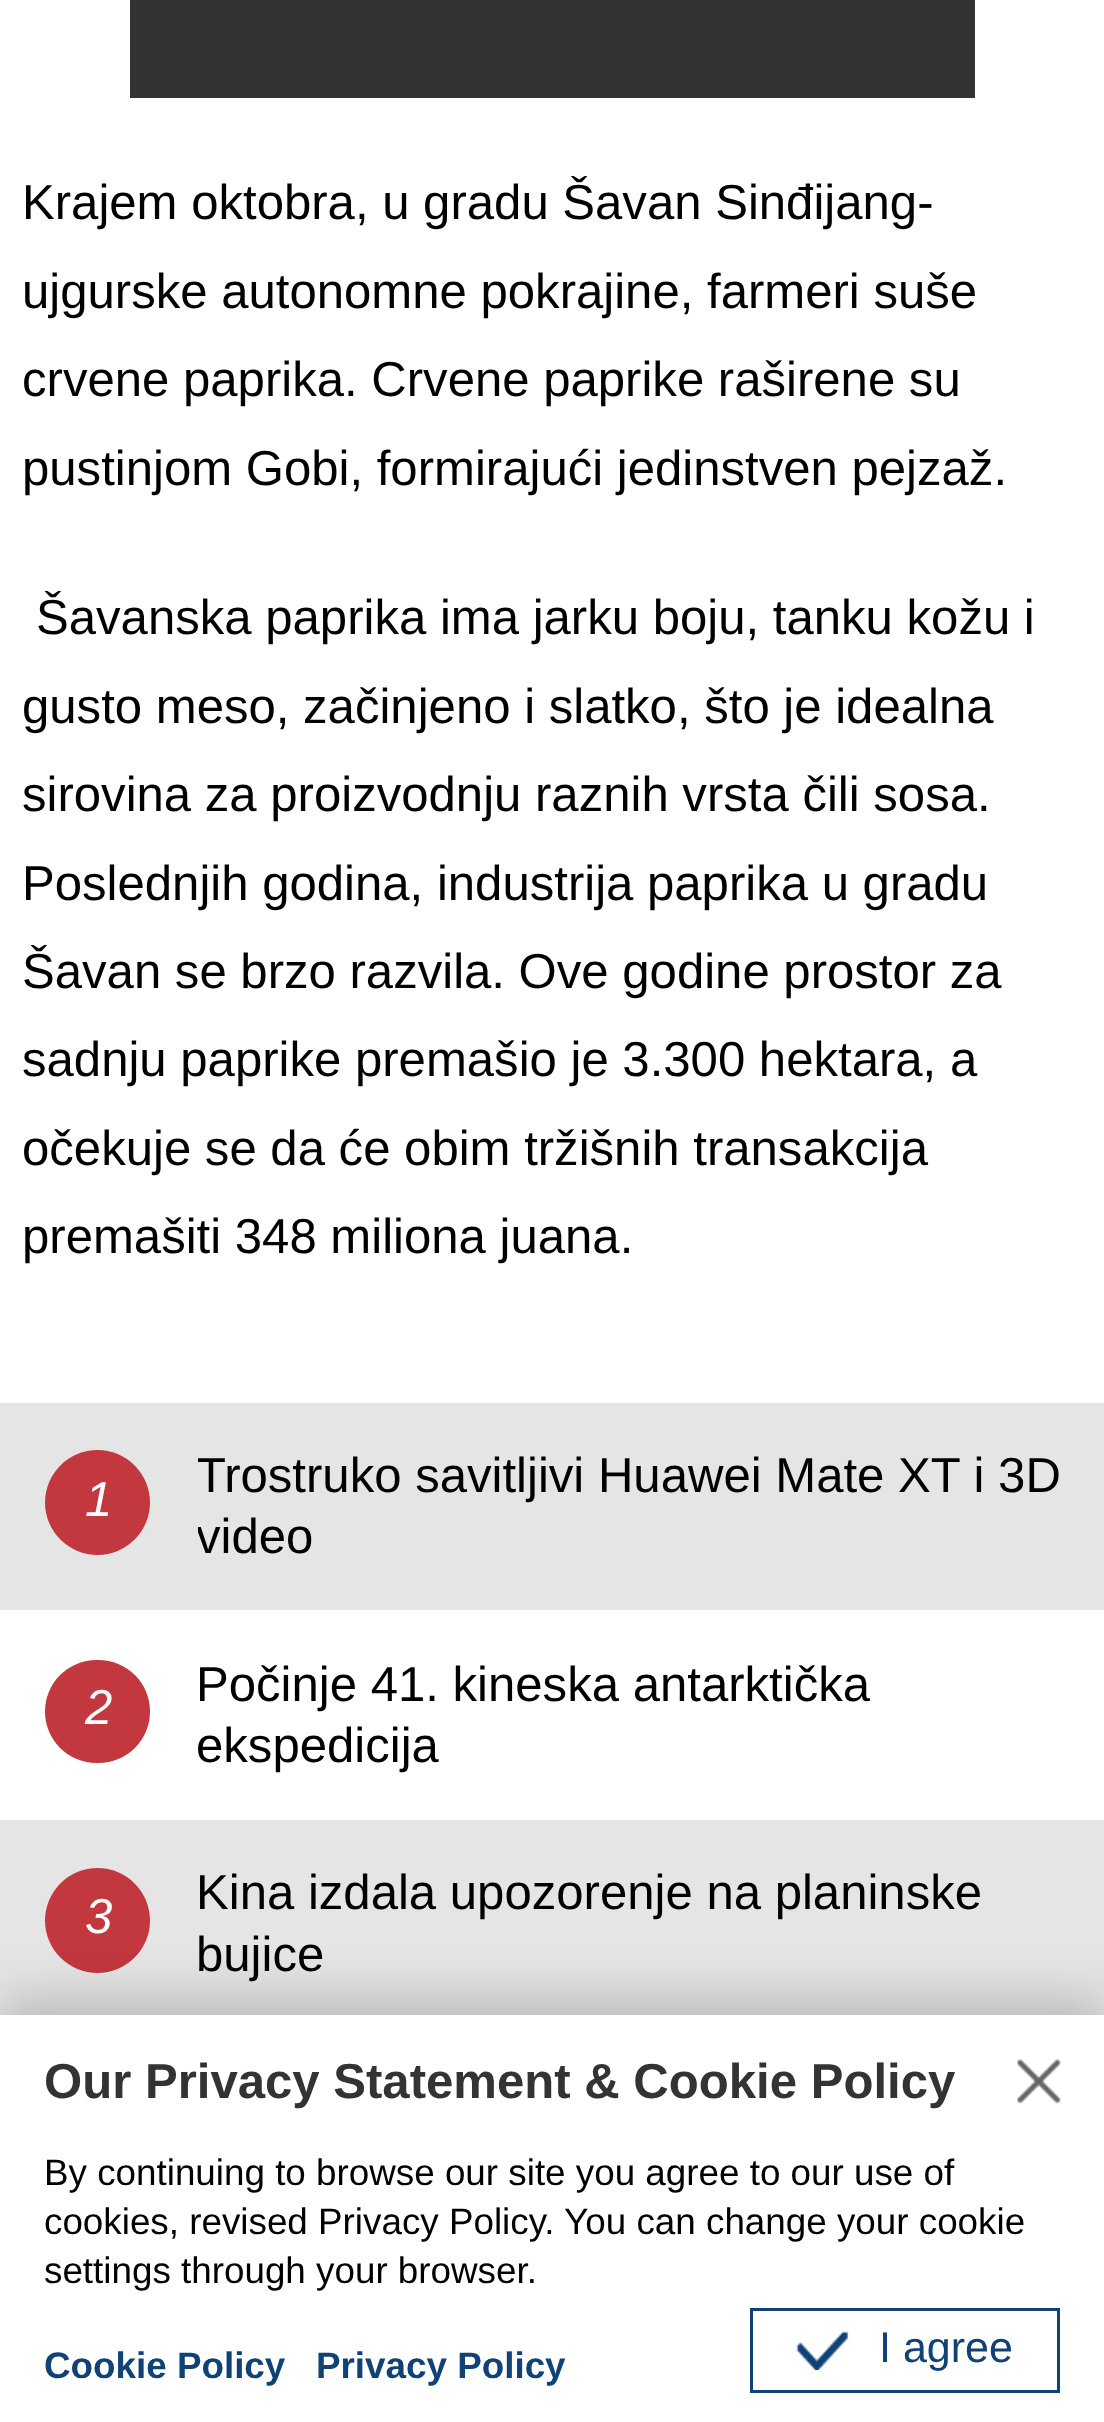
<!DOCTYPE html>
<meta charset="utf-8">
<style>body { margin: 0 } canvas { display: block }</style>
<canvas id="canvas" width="1104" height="2422"></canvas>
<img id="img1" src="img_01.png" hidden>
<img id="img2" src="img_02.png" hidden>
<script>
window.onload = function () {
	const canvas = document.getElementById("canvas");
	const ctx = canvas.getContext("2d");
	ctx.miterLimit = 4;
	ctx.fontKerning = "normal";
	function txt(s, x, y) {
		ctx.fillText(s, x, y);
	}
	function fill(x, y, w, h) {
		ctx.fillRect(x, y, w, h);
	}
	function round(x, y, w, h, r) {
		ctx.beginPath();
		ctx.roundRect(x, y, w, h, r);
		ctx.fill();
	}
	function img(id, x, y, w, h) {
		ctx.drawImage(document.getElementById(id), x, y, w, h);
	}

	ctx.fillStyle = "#FFFFFF";
	fill(0, 0, 1104, 2422);
	ctx.fillStyle = "#333333";
	fill(130, 0, 845, 98);
	ctx.fillStyle = "#E5E5E5";
	fill(0, 1403, 1104, 207);
	ctx.fillStyle = "#C3373F";
	ctx.beginPath();
	ctx.arc(97.5, 1502.5, 52.5, 0, Math.PI * 2);
	ctx.fill();
	round(45, 1660, 105, 103, 51.5);
	ctx.fillStyle = "#E5E5E5";
	fill(0, 1820, 1104, 195);
	ctx.fillStyle = "#C3373F";
	ctx.beginPath();
	ctx.arc(97.5, 1920.5, 52.5, 0, Math.PI * 2);
	ctx.fill();
	ctx.fillStyle = "rgba(0, 0, 0, 0.19)";
	ctx.filter = "blur(25px)";
	ctx.beginPath();
	ctx.rect(0, 1998, 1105, 407);
	ctx.fill();
	ctx.filter = "none";
	ctx.fillStyle = "#FFFFFF";
	fill(0, 2015, 1104, 407);
	img("img1", 1017, 2059, 44, 45);
	ctx.strokeStyle = "#104275";
	ctx.lineWidth = 3;
	ctx.strokeRect(751.5, 2309.5, 307, 82);
	img("img2", 796, 2331, 53, 39);
	ctx.font = "49.1px Liberation Sans";
	ctx.fillStyle = "#000000";
	txt("Krajem oktobra, u gradu Šavan Sinđijang-", 22, 219);
	txt("ujgurske autonomne pokrajine, farmeri suše", 22, 308);
	txt("crvene paprika. Crvene paprike raširene su", 22, 396);
	txt("pustinjom Gobi, formirajući jedinstven pejzaž.", 22, 485);
	txt("Šavanska paprika ima jarku boju, tanku kožu i", 36, 634);
	txt("gusto meso, začinjeno i slatko, što je idealna", 22, 723);
	txt("sirovina za proizvodnju raznih vrsta čili sosa.", 22, 811);
	txt("Poslednjih godina, industrija paprika u gradu", 22, 900);
	txt("Šavan se brzo razvila. Ove godine prostor za", 22, 988);
	txt("sadnju paprike premašio je 3.300 hektara, a", 22, 1076);
	txt("očekuje se da će obim tržišnih transakcija", 22, 1165);
	txt("premašiti 348 miliona juana.", 22, 1253);
	ctx.font = "italic 49.1px Liberation Sans";
	ctx.fillStyle = "#FFFFFF";
	txt("1", 85, 1516);
	ctx.save();
	ctx.beginPath();
	ctx.rect(198, 1445, 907, 123);
	ctx.clip();
	ctx.font = "49.1px Liberation Sans";
	ctx.fillStyle = "#000000";
	txt("Trostruko savitljivi Huawei Mate XT i 3D", 196, 1492);
	txt("video", 196, 1553);
	ctx.restore();
	txt("2", 85, 1724);
	ctx.font = "49.1px Liberation Sans";
	ctx.fillStyle = "#000000";
	txt("Počinje 41. kineska antarktička", 196, 1701);
	txt("ekspedicija", 196, 1762);
	ctx.font = "italic 49.1px Liberation Sans";
	ctx.fillStyle = "#FFFFFF";
	txt("3", 85, 1933);
	ctx.font = "49.1px Liberation Sans";
	ctx.fillStyle = "#000000";
	txt("Kina izdala upozorenje na planinske", 196, 1909);
	txt("bujice", 196, 1971);
	ctx.font = "bold 49.1px Liberation Sans";
	ctx.fillStyle = "#333333";
	txt("Our Privacy Statement & Cookie Policy", 44, 2098);
	ctx.font = "36.8px Liberation Sans";
	ctx.fillStyle = "#000000";
	txt("By continuing to browse our site you agree to our use of", 44, 2185);
	txt("cookies, revised Privacy Policy. You can change your cookie", 44, 2234);
	txt("settings through your browser.", 44, 2283);
	ctx.font = "bold 36.8px Liberation Sans";
	ctx.fillStyle = "#104275";
	txt("Cookie Policy", 44, 2378);
	txt("Privacy Policy", 316, 2378);
	ctx.font = "43px Liberation Sans";
	txt("I agree", 879, 2362);
};
</script>
